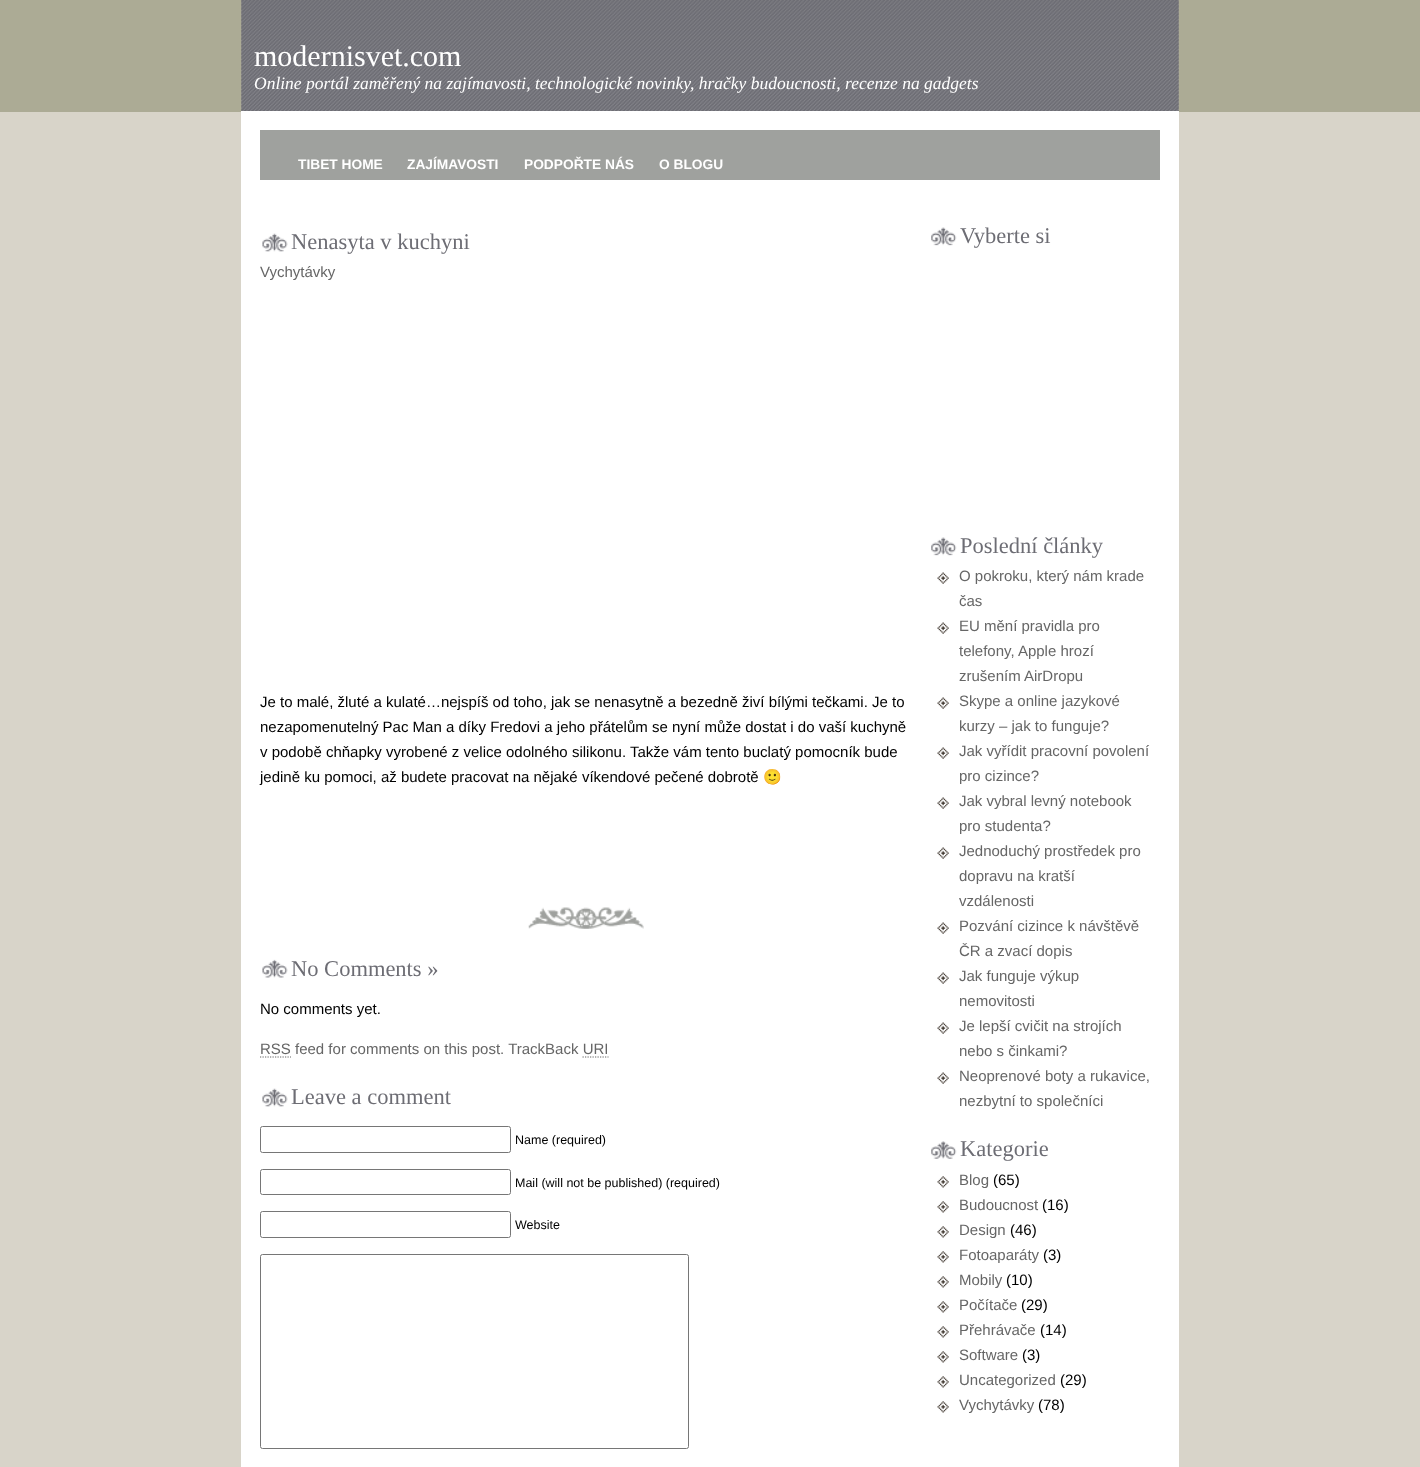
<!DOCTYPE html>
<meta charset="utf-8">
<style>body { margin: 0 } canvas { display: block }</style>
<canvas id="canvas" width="1420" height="1467"></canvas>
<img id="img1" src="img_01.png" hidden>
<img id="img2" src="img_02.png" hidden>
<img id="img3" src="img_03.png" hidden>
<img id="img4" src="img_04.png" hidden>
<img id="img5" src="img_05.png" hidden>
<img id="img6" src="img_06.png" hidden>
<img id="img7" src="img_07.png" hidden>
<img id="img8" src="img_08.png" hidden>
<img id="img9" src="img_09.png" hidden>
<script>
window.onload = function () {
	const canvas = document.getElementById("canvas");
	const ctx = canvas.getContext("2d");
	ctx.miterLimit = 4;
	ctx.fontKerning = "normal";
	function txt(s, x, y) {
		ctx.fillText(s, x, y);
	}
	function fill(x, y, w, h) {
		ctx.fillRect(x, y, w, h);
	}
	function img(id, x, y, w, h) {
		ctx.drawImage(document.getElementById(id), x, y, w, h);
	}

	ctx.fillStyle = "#D8D4C9";
	fill(0, 0, 1420, 1467);
	ctx.fillStyle = "#ACAB95";
	fill(0, 0, 1420, 112);
	img("img1", 241, 0, 938, 111);
	ctx.fillStyle = "#FFFFFF";
	fill(241, 111, 938, 1356);
	ctx.fillStyle = "#9FA19E";
	fill(260, 130, 900, 50);
	img("img2", 528, 907, 116, 22);
	img("img3", 262, 233, 26, 19);
	img("img4", 262, 959, 26, 19);
	ctx.beginPath();
	ctx.moveTo(260, 1057);
	ctx.lineTo(291, 1057);
	ctx.strokeStyle = "#666666";
	ctx.lineWidth = 1.2;
	ctx.setLineDash([1.25, 1.25]);
	ctx.stroke();
	ctx.beginPath();
	ctx.moveTo(582.5, 1057);
	ctx.lineTo(608.5, 1057);
	ctx.stroke();
	img("img3", 262, 1088, 26, 19);
	ctx.beginPath();
	ctx.roundRect(260.5, 1126.5, 250, 26, 2);
	ctx.strokeStyle = "#767676";
	ctx.lineWidth = 1;
	ctx.setLineDash([]);
	ctx.stroke();
	ctx.beginPath();
	ctx.roundRect(260.5, 1169.5, 250, 25, 2);
	ctx.stroke();
	ctx.beginPath();
	ctx.roundRect(260.5, 1211.5, 250, 26, 2);
	ctx.stroke();
	ctx.beginPath();
	ctx.roundRect(260.5, 1254.5, 428, 194, 2);
	ctx.stroke();
	img("img5", 931, 227, 26, 19);
	img("img6", 931, 537, 26, 19);
	img("img7", 937, 572, 12, 12);
	img("img7", 937, 622, 12, 12);
	img("img7", 937, 697, 12, 12);
	img("img7", 937, 747, 12, 12);
	img("img7", 937, 797, 12, 12);
	img("img7", 937, 847, 12, 12);
	img("img7", 937, 922, 12, 12);
	img("img7", 937, 972, 12, 12);
	img("img7", 937, 1022, 12, 12);
	img("img7", 937, 1072, 12, 12);
	img("img8", 931, 1141, 26, 18);
	img("img9", 937, 1176, 12, 12);
	img("img9", 937, 1201, 12, 12);
	img("img9", 937, 1226, 12, 12);
	img("img9", 937, 1251, 12, 12);
	img("img9", 937, 1276, 12, 12);
	img("img9", 937, 1301, 12, 12);
	img("img9", 937, 1326, 12, 12);
	img("img9", 937, 1351, 12, 12);
	img("img9", 937, 1376, 12, 12);
	img("img9", 937, 1401, 12, 12);
	ctx.font = "30px Liberation Serif";
	ctx.fillStyle = "#FFFFFF";
	txt("modernisvet.com", 254, 66);
	ctx.font = "italic 17.5px Liberation Serif";
	txt("Online portál zaměřený na zajímavosti, technologické novinky, hračky budoucnosti, recenze na gadgets", 254, 89);
	ctx.font = "bold 13.75px Liberation Sans";
	txt("TIBET HOME", 298, 169);
	txt("ZAJÍMAVOSTI", 407, 169);
	txt("PODPOŘTE NÁS", 524, 169);
	txt("O BLOGU", 659, 169);
	ctx.font = "22.5px Liberation Serif";
	ctx.fillStyle = "#6D6D74";
	txt("Nenasyta v kuchyni", 291, 249);
	ctx.font = "15px Liberation Sans";
	ctx.fillStyle = "#666666";
	txt("Vychytávky", 260, 277);
	ctx.fillStyle = "#000000";
	txt("Je to malé, žluté a kulaté…nejspíš od toho, jak se nenasytně a bezedně živí bílými tečkami. Je to", 260, 707);
	txt("nezapomenutelný Pac Man a díky Fredovi a jeho přátelům se nyní může dostat i do vaší kuchyně", 260, 732);
	txt("v podobě chňapky vyrobené z velice odolného silikonu. Takže vám tento buclatý pomocník bude", 260, 757);
	txt("jedině ku pomoci, až budete pracovat na nějaké víkendové pečené dobrotě", 260, 782);
	ctx.font = "15px Noto Color Emoji";
	txt("🙂", 763, 782);
	ctx.font = "22.5px Liberation Serif";
	ctx.fillStyle = "#6D6D74";
	txt("No Comments »", 291, 976);
	ctx.font = "15px Liberation Sans";
	ctx.fillStyle = "#000000";
	txt("No comments yet.", 260, 1014);
	ctx.fillStyle = "#666666";
	txt("RSS feed for comments on this post. TrackBack URI", 260, 1054);
	ctx.font = "22.5px Liberation Serif";
	ctx.fillStyle = "#6D6D74";
	txt("Leave a comment", 291, 1104);
	ctx.font = "12.5px Liberation Sans";
	ctx.fillStyle = "#000000";
	txt("Name (required)", 515, 1144);
	txt("Mail (will not be published) (required)", 515, 1187);
	txt("Website", 515, 1229);
	ctx.font = "22.5px Liberation Serif";
	ctx.fillStyle = "#6D6D74";
	txt("Vyberte si", 960, 243);
	txt("Poslední články", 960, 553);
	ctx.font = "15px Liberation Sans";
	ctx.fillStyle = "#666666";
	txt("O pokroku, který nám krade", 959, 581);
	txt("čas", 959, 606);
	txt("EU mění pravidla pro", 959, 631);
	txt("telefony, Apple hrozí", 959, 656);
	txt("zrušením AirDropu", 959, 681);
	txt("Skype a online jazykové", 959, 706);
	txt("kurzy – jak to funguje?", 959, 731);
	txt("Jak vyřídit pracovní povolení", 959, 756);
	txt("pro cizince?", 959, 781);
	txt("Jak vybral levný notebook", 959, 806);
	txt("pro studenta?", 959, 831);
	txt("Jednoduchý prostředek pro", 959, 856);
	txt("dopravu na kratší", 959, 881);
	txt("vzdálenosti", 959, 906);
	txt("Pozvání cizince k návštěvě", 959, 931);
	txt("ČR a zvací dopis", 959, 956);
	txt("Jak funguje výkup", 959, 981);
	txt("nemovitosti", 959, 1006);
	txt("Je lepší cvičit na strojích", 959, 1031);
	txt("nebo s činkami?", 959, 1056);
	txt("Neoprenové boty a rukavice,", 959, 1081);
	txt("nezbytní to společníci", 959, 1106);
	ctx.font = "22.5px Liberation Serif";
	ctx.fillStyle = "#6D6D74";
	txt("Kategorie", 960, 1156);
	ctx.font = "15px Liberation Sans";
	ctx.fillStyle = "#666666";
	txt("Blog", 959, 1185);
	ctx.fillStyle = "#000000";
	txt("(65)", 993, 1185);
	ctx.fillStyle = "#666666";
	txt("Budoucnost", 959, 1210);
	ctx.fillStyle = "#000000";
	txt("(16)", 1042, 1210);
	ctx.fillStyle = "#666666";
	txt("Design", 959, 1235);
	ctx.fillStyle = "#000000";
	txt("(46)", 1010, 1235);
	ctx.fillStyle = "#666666";
	txt("Fotoaparáty", 959, 1260);
	ctx.fillStyle = "#000000";
	txt("(3)", 1043, 1260);
	ctx.fillStyle = "#666666";
	txt("Mobily", 959, 1285);
	ctx.fillStyle = "#000000";
	txt("(10)", 1006, 1285);
	ctx.fillStyle = "#666666";
	txt("Počítače", 959, 1310);
	ctx.fillStyle = "#000000";
	txt("(29)", 1021, 1310);
	ctx.fillStyle = "#666666";
	txt("Přehrávače", 959, 1335);
	ctx.fillStyle = "#000000";
	txt("(14)", 1040, 1335);
	ctx.fillStyle = "#666666";
	txt("Software", 959, 1360);
	ctx.fillStyle = "#000000";
	txt("(3)", 1022, 1360);
	ctx.fillStyle = "#666666";
	txt("Uncategorized", 959, 1385);
	ctx.fillStyle = "#000000";
	txt("(29)", 1060, 1385);
	ctx.fillStyle = "#666666";
	txt("Vychytávky", 959, 1410);
	ctx.fillStyle = "#000000";
	txt("(78)", 1038, 1410);
};
</script>
